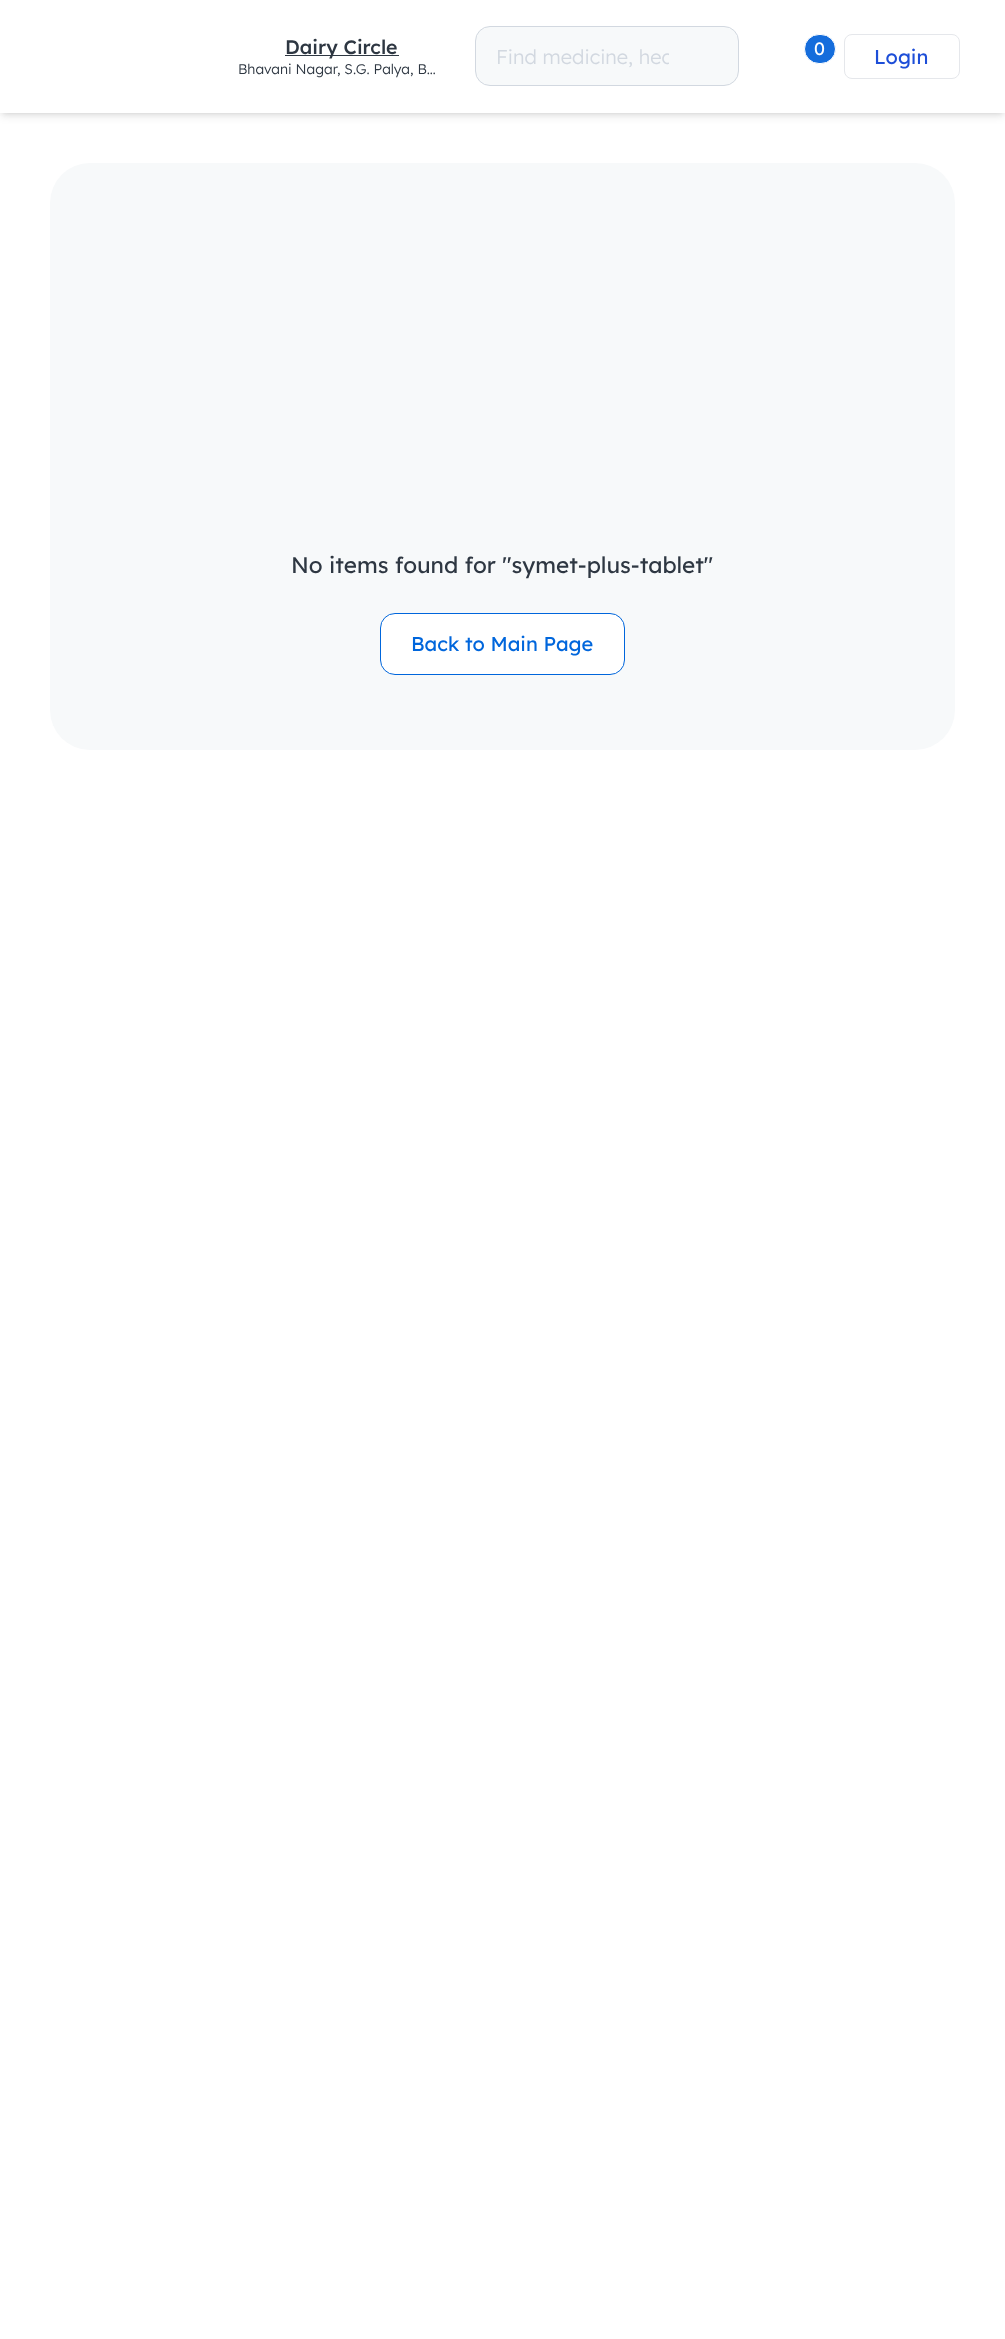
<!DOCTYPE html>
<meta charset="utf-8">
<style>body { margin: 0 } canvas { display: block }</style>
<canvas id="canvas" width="1005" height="2339"></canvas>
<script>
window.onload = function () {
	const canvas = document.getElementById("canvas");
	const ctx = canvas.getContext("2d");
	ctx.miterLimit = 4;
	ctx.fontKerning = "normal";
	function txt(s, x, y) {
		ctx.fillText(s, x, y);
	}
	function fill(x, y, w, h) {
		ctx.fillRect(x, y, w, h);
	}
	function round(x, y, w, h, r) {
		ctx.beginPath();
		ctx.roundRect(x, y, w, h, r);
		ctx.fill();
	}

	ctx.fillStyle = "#FFFFFF";
	fill(0, 0, 1005, 2339);
	ctx.fillStyle = "rgba(0, 0, 0, 0.1)";
	ctx.filter = "blur(2.5px)";
	ctx.beginPath();
	ctx.rect(3, 5, 1000, 108);
	ctx.fill();
	ctx.filter = "none";
	ctx.filter = "blur(4px)";
	ctx.beginPath();
	ctx.rect(1, 6, 1003, 110);
	ctx.fill();
	ctx.filter = "none";
	ctx.fillStyle = "#FFFFFF";
	fill(0, 0, 1005, 113);
	ctx.fillStyle = "#2E3742";
	fill(285, 55, 114, 1);
	ctx.fillStyle = "#F7F9FA";
	ctx.beginPath();
	ctx.roundRect(475.5, 26.5, 263, 59, 14.5);
	ctx.fill();
	ctx.strokeStyle = "#D2D8E0";
	ctx.stroke();
	ctx.fillStyle = "#156DDC";
	ctx.beginPath();
	ctx.roundRect(804.5, 34.5, 31, 29, 14.5);
	ctx.fill();
	ctx.strokeStyle = "#FFFFFF";
	ctx.stroke();
	ctx.beginPath();
	ctx.roundRect(844.5, 34.5, 115, 44, 7.5);
	ctx.strokeStyle = "#E5E7EB";
	ctx.stroke();
	ctx.fillStyle = "#F7F9FA";
	round(50, 163, 905, 587, 40);
	ctx.fillStyle = "#FFFFFF";
	ctx.beginPath();
	ctx.roundRect(380.5, 613.5, 244, 61, 14.5);
	ctx.fill();
	ctx.strokeStyle = "#0066DC";
	ctx.stroke();
	ctx.font = "500 19.5px Lexend Deca";
	ctx.fillStyle = "#2E3742";
	txt("Dairy Circle", 285, 54);
	ctx.font = "300 14px Lexend Deca";
	txt("Bhavani Nagar, S.G. Palya, B…", 238, 74);
	ctx.save();
	ctx.beginPath();
	ctx.rect(496, 44, 173, 25);
	ctx.clip();
	ctx.font = "300 20px Lexend Deca";
	ctx.fillStyle = "#D2D8E0";
	txt("Find medicine, hea", 496, 64);
	ctx.restore();
	ctx.font = "18px Lexend Deca";
	ctx.fillStyle = "#FFFFFF";
	txt("0", 814, 55);
	ctx.font = "20px Lexend Deca";
	ctx.fillStyle = "#1D4ED8";
	txt("Login", 874, 64);
	ctx.font = "22.5px Lexend Deca";
	ctx.fillStyle = "#2E3742";
	txt("No items found for \"symet-plus-tablet\"", 291, 573);
	ctx.font = "20px Lexend Deca";
	ctx.fillStyle = "#0066DC";
	txt("Back to Main Page", 411, 651);
};
</script>
